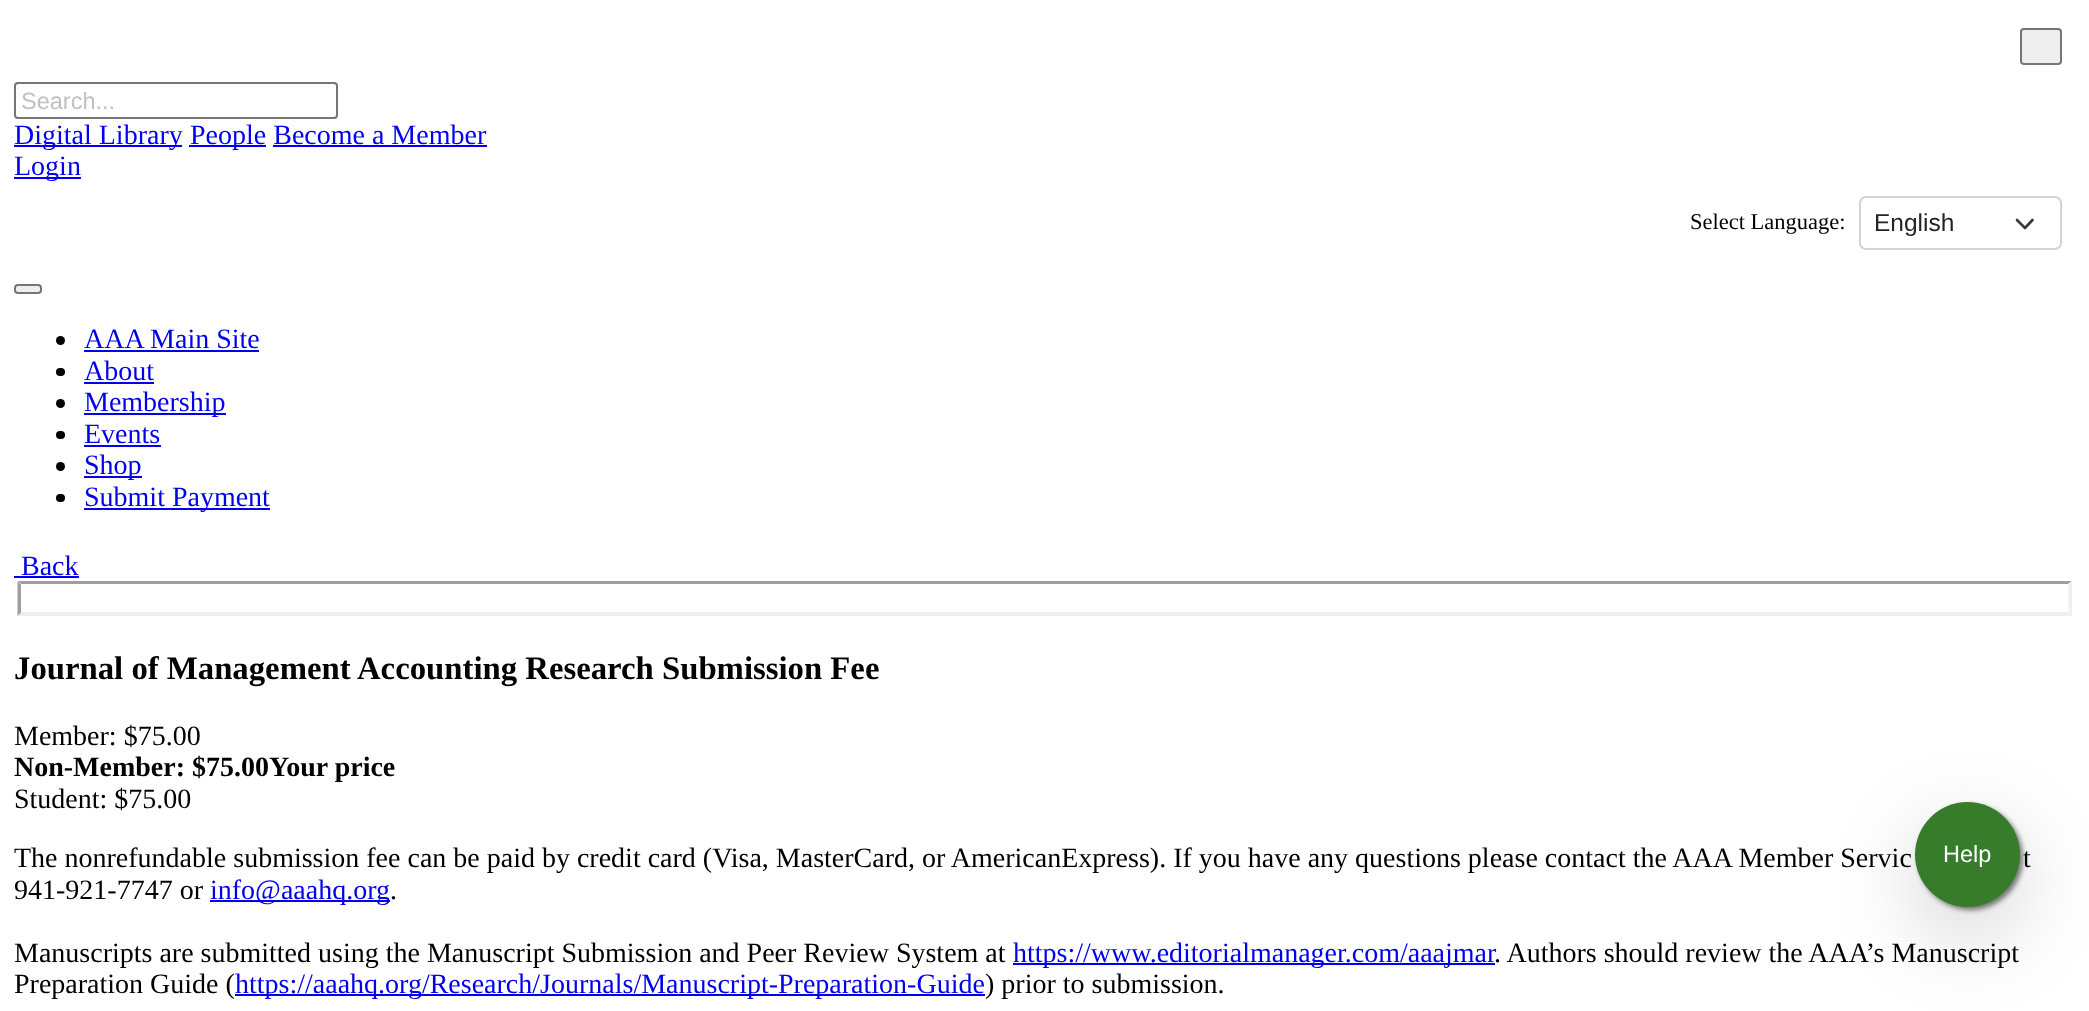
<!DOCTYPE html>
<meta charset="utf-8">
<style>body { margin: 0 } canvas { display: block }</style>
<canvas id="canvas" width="2089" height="1011"></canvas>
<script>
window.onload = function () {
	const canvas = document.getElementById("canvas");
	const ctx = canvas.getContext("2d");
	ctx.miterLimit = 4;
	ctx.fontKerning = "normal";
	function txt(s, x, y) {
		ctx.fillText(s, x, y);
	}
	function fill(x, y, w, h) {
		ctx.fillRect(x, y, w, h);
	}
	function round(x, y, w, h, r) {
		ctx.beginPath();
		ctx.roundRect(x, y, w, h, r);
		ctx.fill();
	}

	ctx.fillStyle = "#FFFFFF";
	fill(0, 0, 2089, 1011);
	ctx.fillStyle = "#EFEFEF";
	ctx.beginPath();
	ctx.roundRect(2021, 29, 40, 35, 3);
	ctx.fill();
	ctx.strokeStyle = "#767676";
	ctx.lineWidth = 2;
	ctx.stroke();
	ctx.beginPath();
	ctx.roundRect(15, 83, 322, 35, 3);
	ctx.stroke();
	ctx.fillStyle = "#0000EE";
	fill(14, 145, 168, 2);
	fill(189, 145, 77, 2);
	fill(273, 145, 214, 2);
	fill(14, 177, 67, 2);
	ctx.beginPath();
	ctx.moveTo(2017, 220);
	ctx.lineTo(2025, 228);
	ctx.lineTo(2032.5, 220);
	ctx.strokeStyle = "#343A40";
	ctx.lineWidth = 2.6;
	ctx.lineCap = "round";
	ctx.lineJoin = "round";
	ctx.stroke();
	ctx.beginPath();
	ctx.roundRect(1860, 197, 201, 52, 6);
	ctx.strokeStyle = "#CED4DA";
	ctx.lineWidth = 2;
	ctx.lineJoin = "miter";
	ctx.stroke();
	ctx.fillStyle = "#EFEFEF";
	ctx.beginPath();
	ctx.roundRect(15, 285, 26, 8, 3);
	ctx.fill();
	ctx.strokeStyle = "#767676";
	ctx.stroke();
	ctx.fillStyle = "#000000";
	ctx.beginPath();
	ctx.arc(60.5, 340.5, 4.5, 0, Math.PI * 2);
	ctx.fill();
	ctx.fillStyle = "#0000EE";
	fill(84, 350, 175, 2);
	ctx.fillStyle = "#000000";
	round(56, 368, 9, 8, 4);
	ctx.fillStyle = "#0000EE";
	fill(84, 382, 70, 2);
	ctx.fillStyle = "#000000";
	ctx.beginPath();
	ctx.arc(60.5, 403.5, 4.5, 0, Math.PI * 2);
	ctx.fill();
	ctx.fillStyle = "#0000EE";
	fill(84, 413, 142, 2);
	ctx.fillStyle = "#000000";
	round(56, 431, 9, 8, 4);
	ctx.fillStyle = "#0000EE";
	fill(84, 445, 77, 2);
	ctx.fillStyle = "#000000";
	ctx.beginPath();
	ctx.arc(60.5, 466.5, 4.5, 0, Math.PI * 2);
	ctx.fill();
	ctx.fillStyle = "#0000EE";
	fill(84, 476, 58, 2);
	ctx.fillStyle = "#000000";
	round(56, 494, 9, 8, 4);
	ctx.fillStyle = "#0000EE";
	fill(84, 508, 186, 2);
	fill(14, 576, 65, 2);
	ctx.fillStyle = "#9F9F9F";
	ctx.beginPath();
	ctx.moveTo(18, 581);
	ctx.lineTo(2072, 581);
	ctx.lineTo(2068, 584);
	ctx.lineTo(21, 584);
	ctx.closePath();
	ctx.fill();
	ctx.fillStyle = "#EFEFEF";
	ctx.beginPath();
	ctx.moveTo(2072, 581);
	ctx.lineTo(2072, 616);
	ctx.lineTo(2068.5, 612.5);
	ctx.lineTo(2068.5, 584.5);
	ctx.closePath();
	ctx.fill();
	ctx.beginPath();
	ctx.moveTo(2072, 616);
	ctx.lineTo(18, 616);
	ctx.lineTo(21, 612);
	ctx.lineTo(2068, 612);
	ctx.closePath();
	ctx.fill();
	ctx.fillStyle = "#9F9F9F";
	ctx.beginPath();
	ctx.moveTo(17.5, 616);
	ctx.lineTo(17.5, 581);
	ctx.lineTo(21, 584.5);
	ctx.lineTo(21, 612.5);
	ctx.closePath();
	ctx.fill();
	ctx.fillStyle = "#0000EE";
	fill(210, 900, 180, 2);
	fill(1013, 963, 482, 2);
	fill(235, 994, 750, 2);
	ctx.fillStyle = "rgba(0, 0, 0, 0.18)";
	ctx.filter = "blur(42px)";
	ctx.beginPath();
	ctx.roundRect(1915, 830, 105, 105, 52.5);
	ctx.fill();
	ctx.filter = "none";
	ctx.fillStyle = "rgba(0, 0, 0, 0.5)";
	ctx.filter = "blur(2.5px)";
	ctx.beginPath();
	ctx.roundRect(1918, 805, 105, 105, 52.5);
	ctx.fill();
	ctx.filter = "none";
	ctx.fillStyle = "#367C2B";
	ctx.beginPath();
	ctx.arc(1967.5, 854.5, 52.5, 0, Math.PI * 2);
	ctx.fill();
	ctx.font = "23.5px Liberation Sans";
	ctx.fillStyle = "#C0C0C0";
	txt("Search...", 21, 109);
	ctx.font = "28px Liberation Serif";
	ctx.fillStyle = "#0000EE";
	txt("Digital Library", 14, 144);
	txt("People Become a Member", 190, 144);
	txt("Login", 14, 175);
	ctx.font = "22.5px Liberation Serif";
	ctx.fillStyle = "#000000";
	txt("Select Language:", 1690, 229);
	ctx.font = "24.5px Liberation Sans";
	ctx.fillStyle = "#212529";
	txt("English", 1874, 231);
	ctx.font = "28px Liberation Serif";
	ctx.fillStyle = "#0000EE";
	txt("AAA Main Site", 84, 348);
	txt("About", 84, 380);
	txt("Membership", 84, 411);
	txt("Events", 84, 443);
	txt("Shop", 84, 474);
	txt("Submit Payment", 84, 506);
	txt("Back", 21, 575);
	ctx.font = "bold 32.75px Liberation Serif";
	ctx.fillStyle = "#000000";
	txt("Journal of Management Accounting Research Submission Fee", 14, 679);
	ctx.font = "28px Liberation Serif";
	txt("Member: $75.00", 14, 745);
	ctx.font = "bold 28px Liberation Serif";
	txt("Non-Member: $75.00Your price", 14, 776);
	ctx.font = "28px Liberation Serif";
	txt("Student: $75.00", 14, 808);
	txt("The nonrefundable submission fee can be paid by credit card (Visa, MasterCard, or AmericanExpress). If you have any questions please contact the AAA Member Servic", 14, 867);
	txt("t", 2023, 867);
	txt("941-921-7747 or", 14, 899);
	ctx.fillStyle = "#0000EE";
	txt("info@aaahq.org", 210, 899);
	ctx.fillStyle = "#000000";
	txt(".", 390, 899);
	txt("Manuscripts are submitted using the Manuscript Submission and Peer Review System at", 14, 962);
	ctx.fillStyle = "#0000EE";
	txt("https://www.editorialmanager.com/aaajmar", 1013, 962);
	ctx.fillStyle = "#000000";
	txt(". Authors should review the AAA’s Manuscript", 1494, 962);
	txt("Preparation Guide (", 14, 993);
	ctx.fillStyle = "#0000EE";
	txt("https://aaahq.org/Research/Journals/Manuscript-Preparation-Guide", 235, 993);
	ctx.fillStyle = "#000000";
	txt(") prior to submission.", 985, 993);
	ctx.font = "23.5px Liberation Sans";
	ctx.fillStyle = "#FFFFFF";
	txt("Help", 1943, 862);
};
</script>
